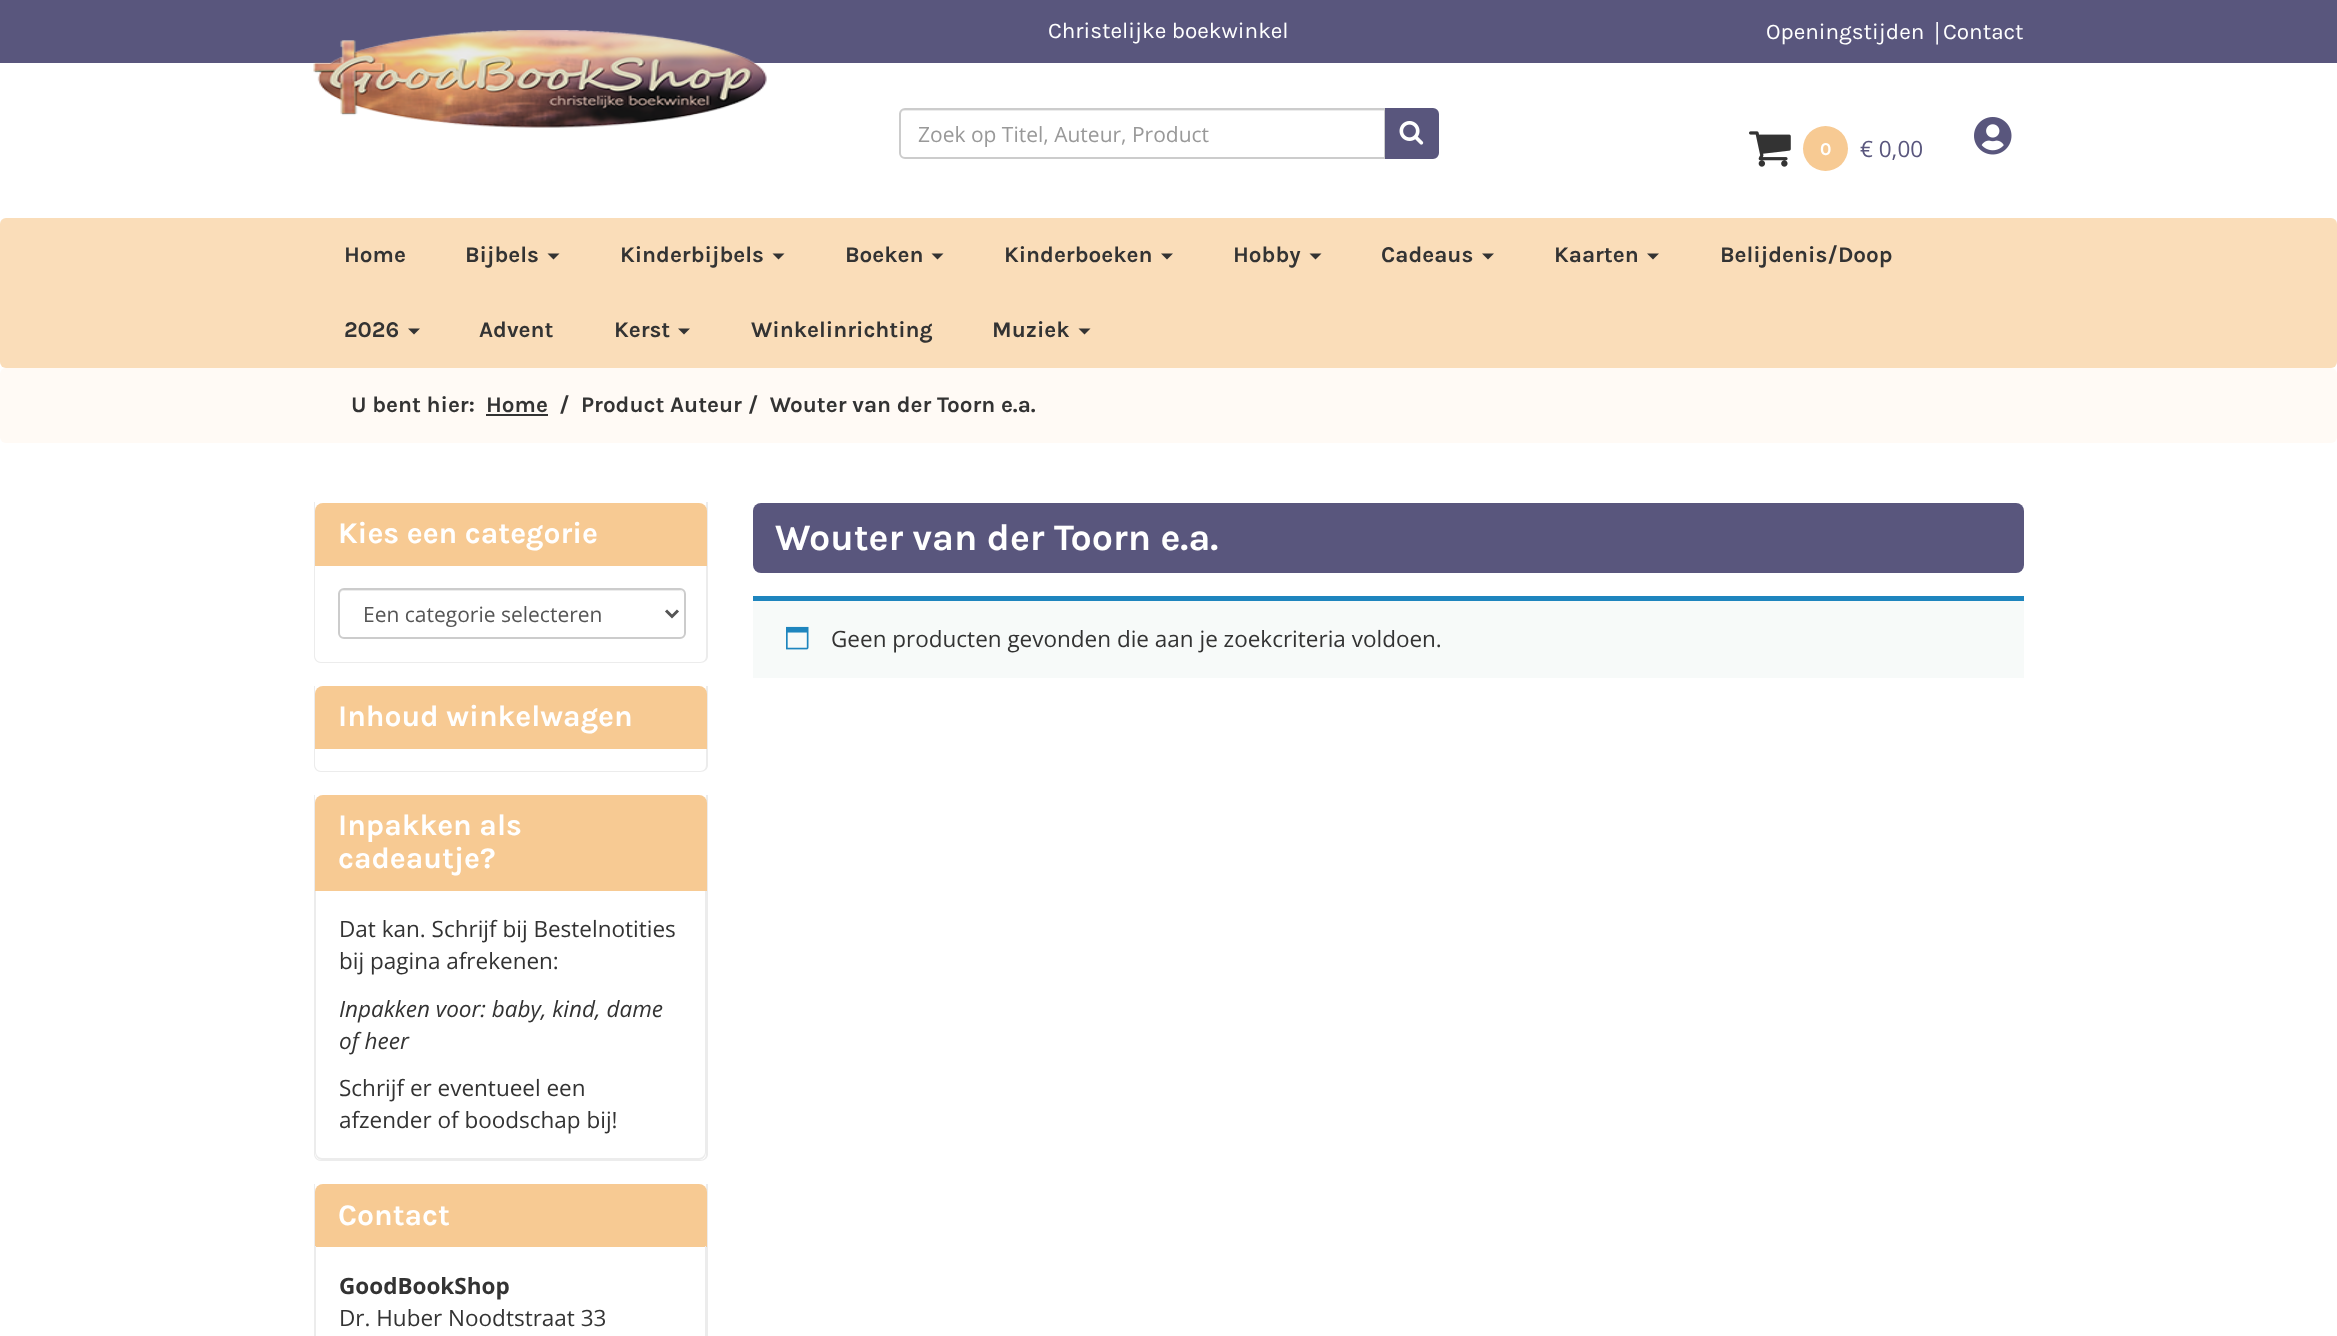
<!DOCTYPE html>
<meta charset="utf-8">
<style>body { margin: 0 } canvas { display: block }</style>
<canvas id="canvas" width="2337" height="1336"></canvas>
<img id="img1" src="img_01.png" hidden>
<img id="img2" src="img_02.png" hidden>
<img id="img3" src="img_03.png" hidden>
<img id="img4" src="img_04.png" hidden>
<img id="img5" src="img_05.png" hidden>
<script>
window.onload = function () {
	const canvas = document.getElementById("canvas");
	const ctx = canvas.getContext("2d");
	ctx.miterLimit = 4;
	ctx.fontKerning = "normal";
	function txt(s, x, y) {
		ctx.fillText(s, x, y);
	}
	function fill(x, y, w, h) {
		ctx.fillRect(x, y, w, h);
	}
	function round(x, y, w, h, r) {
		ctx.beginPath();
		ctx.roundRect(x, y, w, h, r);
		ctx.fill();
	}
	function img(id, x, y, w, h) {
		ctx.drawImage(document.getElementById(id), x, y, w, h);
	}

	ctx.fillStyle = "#FFFFFF";
	fill(0, 0, 2337, 1336);
	ctx.fillStyle = "#59567D";
	fill(0, 0, 2337, 63);
	img("img1", 313, 30, 454, 98);
	ctx.fillStyle = "#ECECEC";
	ctx.beginPath();
	ctx.moveTo(904, 111);
	ctx.lineTo(1384, 111);
	ctx.lineTo(1384, 158);
	ctx.lineTo(1385, 158);
	ctx.lineTo(1385, 110);
	ctx.lineTo(905, 110);
	ctx.bezierCurveTo(902, 110, 900, 112, 900, 115);
	ctx.lineTo(900, 116);
	ctx.bezierCurveTo(900, 113, 902, 111, 904, 111);
	ctx.closePath();
	ctx.fill();
	ctx.beginPath();
	ctx.roundRect(900, 109, 485, 49, [5, 0, 0, 5]);
	ctx.strokeStyle = "#CCCCCC";
	ctx.lineWidth = 2;
	ctx.stroke();
	ctx.fillStyle = "#59567D";
	ctx.beginPath();
	ctx.roundRect(1386, 109, 52, 49, [0, 5, 5, 0]);
	ctx.fill();
	ctx.strokeStyle = "#59567D";
	ctx.stroke();
	img("img2", 1399, 121, 25, 24);
	img("img3", 1749, 131, 42, 36);
	ctx.fillStyle = "#F7CA93";
	ctx.beginPath();
	ctx.arc(1825.5, 148.5, 22.5, 0, Math.PI * 2);
	ctx.fill();
	img("img4", 1974, 117, 38, 38);
	ctx.fillStyle = "#FADDB9";
	round(0, 218, 2337, 150, 6);
	ctx.fillStyle = "#333333";
	ctx.beginPath();
	ctx.moveTo(547.5, 253.5);
	ctx.lineTo(559.5, 253.5);
	ctx.lineTo(553.5, 259.5);
	ctx.closePath();
	ctx.fill();
	ctx.beginPath();
	ctx.moveTo(772.5, 253.5);
	ctx.lineTo(784.5, 253.5);
	ctx.lineTo(778.5, 259.5);
	ctx.closePath();
	ctx.fill();
	ctx.beginPath();
	ctx.moveTo(931.5, 253.5);
	ctx.lineTo(943.5, 253.5);
	ctx.lineTo(937.5, 259.5);
	ctx.closePath();
	ctx.fill();
	ctx.beginPath();
	ctx.moveTo(1161, 253.5);
	ctx.lineTo(1173, 253.5);
	ctx.lineTo(1167, 259.5);
	ctx.closePath();
	ctx.fill();
	ctx.beginPath();
	ctx.moveTo(1309.5, 253.5);
	ctx.lineTo(1321.5, 253.5);
	ctx.lineTo(1315.5, 259.5);
	ctx.closePath();
	ctx.fill();
	ctx.beginPath();
	ctx.moveTo(1482, 253.5);
	ctx.lineTo(1494, 253.5);
	ctx.lineTo(1488, 259.5);
	ctx.closePath();
	ctx.fill();
	ctx.beginPath();
	ctx.moveTo(1647, 253.5);
	ctx.lineTo(1659, 253.5);
	ctx.lineTo(1653, 259.5);
	ctx.closePath();
	ctx.fill();
	ctx.beginPath();
	ctx.moveTo(408, 328.5);
	ctx.lineTo(420, 328.5);
	ctx.lineTo(414, 334.5);
	ctx.closePath();
	ctx.fill();
	ctx.beginPath();
	ctx.moveTo(678, 328.5);
	ctx.lineTo(690, 328.5);
	ctx.lineTo(684, 334.5);
	ctx.closePath();
	ctx.fill();
	ctx.beginPath();
	ctx.moveTo(1078.5, 328.5);
	ctx.lineTo(1090.5, 328.5);
	ctx.lineTo(1084.5, 334.5);
	ctx.closePath();
	ctx.fill();
	ctx.fillStyle = "#FFFAF5";
	round(0, 368, 2337, 75, 6);
	ctx.fillStyle = "#333333";
	fill(486, 414, 62, 2);
	ctx.fillStyle = "#ECECEC";
	ctx.beginPath();
	ctx.moveTo(314, 502);
	ctx.lineTo(708, 502);
	ctx.lineTo(708, 656);
	ctx.bezierCurveTo(708, 660, 705, 663, 700, 663);
	ctx.lineTo(321, 663);
	ctx.bezierCurveTo(317, 663, 314, 660, 314, 656);
	ctx.closePath();
	ctx.moveTo(315, 502);
	ctx.lineTo(706, 502);
	ctx.lineTo(706, 656);
	ctx.bezierCurveTo(706, 659, 704, 662, 700, 662);
	ctx.lineTo(321, 662);
	ctx.bezierCurveTo(318, 662, 315, 659, 315, 656);
	ctx.closePath();
	ctx.fill("evenodd");
	ctx.fillStyle = "#F7CA93";
	ctx.beginPath();
	ctx.roundRect(315, 503, 392, 63, [8, 8, 0, 0]);
	ctx.fill();
	ctx.fillStyle = "#ECECEC";
	ctx.beginPath();
	ctx.moveTo(344, 591);
	ctx.lineTo(680, 591);
	ctx.bezierCurveTo(682, 591, 684, 593, 684, 596);
	ctx.bezierCurveTo(684, 593, 682, 590, 679, 590);
	ctx.lineTo(344, 590);
	ctx.bezierCurveTo(341, 590, 339, 593, 339, 596);
	ctx.bezierCurveTo(339, 593, 341, 591, 344, 591);
	ctx.closePath();
	ctx.fill();
	ctx.beginPath();
	ctx.roundRect(339, 589, 346, 49, 5);
	ctx.strokeStyle = "#CCCCCC";
	ctx.stroke();
	ctx.beginPath();
	ctx.moveTo(666, 610.5);
	ctx.lineTo(672, 616.5);
	ctx.lineTo(678, 610.5);
	ctx.strokeStyle = "#555555";
	ctx.lineWidth = 3;
	ctx.stroke();
	ctx.beginPath();
	ctx.moveTo(314, 686);
	ctx.lineTo(708, 686);
	ctx.lineTo(708, 765);
	ctx.bezierCurveTo(708, 769, 705, 772, 700, 772);
	ctx.lineTo(321, 772);
	ctx.bezierCurveTo(317, 772, 314, 769, 314, 765);
	ctx.closePath();
	ctx.moveTo(315, 686);
	ctx.lineTo(706, 686);
	ctx.lineTo(706, 765);
	ctx.bezierCurveTo(706, 768, 704, 771, 700, 771);
	ctx.lineTo(321, 771);
	ctx.bezierCurveTo(318, 771, 315, 768, 315, 765);
	ctx.closePath();
	ctx.fill("evenodd");
	ctx.fillStyle = "#F7CA93";
	ctx.beginPath();
	ctx.roundRect(315, 686, 392, 63, [8, 8, 0, 0]);
	ctx.fill();
	ctx.fillStyle = "#ECECEC";
	ctx.beginPath();
	ctx.moveTo(314, 795);
	ctx.lineTo(708, 795);
	ctx.lineTo(708, 1154);
	ctx.bezierCurveTo(708, 1158, 705, 1161, 700, 1161);
	ctx.lineTo(321, 1161);
	ctx.bezierCurveTo(317, 1161, 314, 1158, 314, 1154);
	ctx.closePath();
	ctx.moveTo(315, 795);
	ctx.lineTo(706, 795);
	ctx.lineTo(706, 1154);
	ctx.bezierCurveTo(706, 1157, 704, 1160, 700, 1160);
	ctx.lineTo(321, 1160);
	ctx.bezierCurveTo(318, 1160, 315, 1157, 315, 1154);
	ctx.closePath();
	ctx.fill("evenodd");
	ctx.fillStyle = "#F7CA93";
	ctx.beginPath();
	ctx.roundRect(315, 795, 392, 96, [8, 8, 0, 0]);
	ctx.fill();
	ctx.fillStyle = "#ECECEC";
	ctx.beginPath();
	ctx.moveTo(315, 891);
	ctx.lineTo(706, 891);
	ctx.lineTo(706, 1152);
	ctx.bezierCurveTo(706, 1156, 703, 1160, 699, 1160);
	ctx.lineTo(322, 1160);
	ctx.bezierCurveTo(318, 1160, 315, 1156, 315, 1152);
	ctx.closePath();
	ctx.moveTo(316, 891);
	ctx.lineTo(705, 891);
	ctx.lineTo(705, 1152);
	ctx.bezierCurveTo(705, 1155, 702, 1158, 699, 1158);
	ctx.lineTo(322, 1158);
	ctx.bezierCurveTo(319, 1158, 316, 1155, 316, 1152);
	ctx.closePath();
	ctx.fill("evenodd");
	ctx.beginPath();
	ctx.moveTo(314, 1184);
	ctx.lineTo(708, 1184);
	ctx.lineTo(708, 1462);
	ctx.bezierCurveTo(708, 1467, 705, 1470, 700, 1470);
	ctx.lineTo(321, 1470);
	ctx.bezierCurveTo(317, 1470, 314, 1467, 314, 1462);
	ctx.closePath();
	ctx.moveTo(315, 1184);
	ctx.lineTo(706, 1184);
	ctx.lineTo(706, 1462);
	ctx.bezierCurveTo(706, 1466, 704, 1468, 700, 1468);
	ctx.lineTo(321, 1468);
	ctx.bezierCurveTo(318, 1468, 315, 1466, 315, 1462);
	ctx.closePath();
	ctx.fill("evenodd");
	ctx.fillStyle = "#F7CA93";
	ctx.beginPath();
	ctx.roundRect(315, 1184, 392, 63, [8, 8, 0, 0]);
	ctx.fill();
	ctx.fillStyle = "#ECECEC";
	ctx.beginPath();
	ctx.moveTo(315, 1246);
	ctx.lineTo(706, 1246);
	ctx.lineTo(706, 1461);
	ctx.bezierCurveTo(706, 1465, 703, 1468, 699, 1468);
	ctx.lineTo(322, 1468);
	ctx.bezierCurveTo(318, 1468, 315, 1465, 315, 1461);
	ctx.closePath();
	ctx.moveTo(316, 1246);
	ctx.lineTo(705, 1246);
	ctx.lineTo(705, 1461);
	ctx.bezierCurveTo(705, 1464, 702, 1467, 699, 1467);
	ctx.lineTo(322, 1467);
	ctx.bezierCurveTo(319, 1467, 316, 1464, 316, 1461);
	ctx.closePath();
	ctx.fill("evenodd");
	ctx.fillStyle = "#59567D";
	round(753, 503, 1271, 70, 8);
	ctx.fillStyle = "#F7FAF9";
	fill(753, 601, 1271, 77);
	ctx.fillStyle = "#1E85BE";
	fill(753, 596, 1271, 5);
	img("img5", 786, 626, 23, 24);
	ctx.font = "22.5px Karla";
	ctx.fillStyle = "#FFFFFF";
	txt("Christelijke boekwinkel", 1048, 38);
	txt("Openingstijden", 1766, 39);
	ctx.font = "22.5px Open Sans";
	txt("|", 1931, 39);
	ctx.font = "22.5px Karla";
	txt("Contact", 1943, 39);
	ctx.font = "21px Open Sans";
	ctx.fillStyle = "#999999";
	txt("Zoek op Titel, Auteur, Product", 918, 142);
	ctx.font = "bold 18px Karla";
	ctx.fillStyle = "#FFFFFF";
	txt("0", 1820, 155);
	ctx.font = "22.5px Open Sans";
	ctx.fillStyle = "#59567D";
	txt("€ 0,00", 1860, 157);
	ctx.font = "bold 22.5px Karla";
	ctx.fillStyle = "#333333";
	txt("Home", 344, 262);
	txt("Bijbels", 465, 262);
	txt("Kinderbijbels", 620, 262);
	txt("Boeken", 845, 262);
	txt("Kinderboeken", 1004, 262);
	txt("Hobby", 1233, 262);
	txt("Cadeaus", 1381, 262);
	txt("Kaarten", 1554, 262);
	txt("Belijdenis/Doop", 1720, 262);
	txt("2026", 344, 337);
	txt("Advent", 479, 337);
	txt("Kerst", 614, 337);
	txt("Winkelinrichting", 751, 337);
	txt("Muziek", 992, 337);
	txt("U bent hier:", 351, 412);
	txt("Home", 486, 412);
	txt("/  Product Auteur /  Wouter van der Toorn e.a.", 559, 412);
	ctx.font = "bold 30px Karla";
	ctx.fillStyle = "#FFFFFF";
	txt("Kies een categorie", 338, 543);
	ctx.font = "21px Open Sans";
	ctx.fillStyle = "#555555";
	txt("Een categorie selecteren", 363, 622);
	ctx.font = "bold 30px Karla";
	ctx.fillStyle = "#FFFFFF";
	txt("Inhoud winkelwagen", 338, 726);
	txt("Inpakken als", 338, 835);
	txt("cadeautje?", 338, 868);
	ctx.font = "22.5px Open Sans";
	ctx.fillStyle = "#333333";
	txt("Dat kan. Schrijf bij Bestelnotities", 339, 937);
	txt("bij pagina afrekenen:", 339, 969);
	ctx.font = "italic 22.5px Open Sans";
	txt("Inpakken voor: baby, kind, dame", 339, 1017);
	txt("of heer", 339, 1049);
	ctx.font = "22.5px Open Sans";
	txt("Schrijf er eventueel een", 339, 1096);
	txt("afzender of boodschap bij!", 339, 1128);
	ctx.font = "bold 30px Karla";
	ctx.fillStyle = "#FFFFFF";
	txt("Contact", 338, 1225);
	ctx.font = "bold 22.5px Open Sans";
	ctx.fillStyle = "#333333";
	txt("GoodBookShop", 339, 1294);
	ctx.font = "22.5px Open Sans";
	txt("Dr. Huber Noodtstraat 33", 339, 1326);
	ctx.font = "bold 37.5px Karla";
	ctx.fillStyle = "#FFFFFF";
	txt("Wouter van der Toorn e.a.", 775, 550);
	ctx.font = "22.5px Open Sans";
	ctx.fillStyle = "#333333";
	txt("Geen producten gevonden die aan je zoekcriteria voldoen.", 831, 647);
};
</script>
